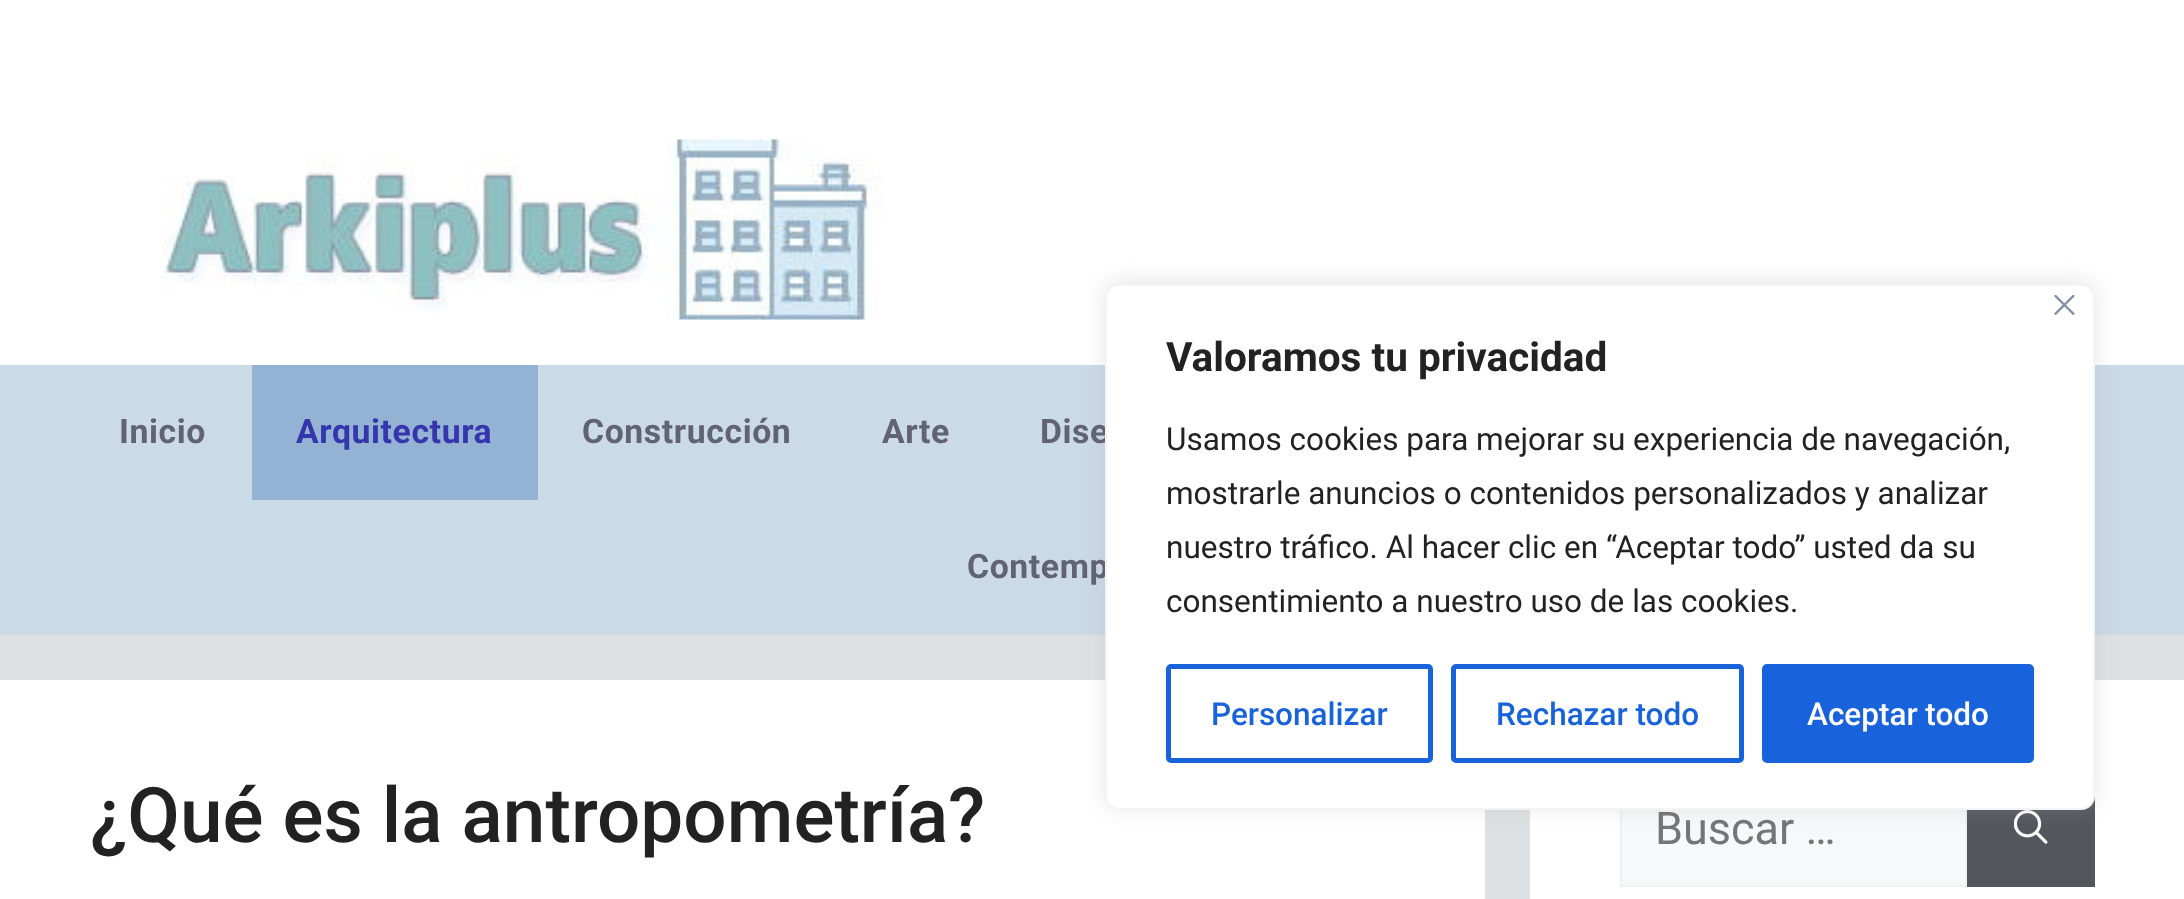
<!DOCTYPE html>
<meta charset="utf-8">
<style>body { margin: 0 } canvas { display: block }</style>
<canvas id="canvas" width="2184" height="899"></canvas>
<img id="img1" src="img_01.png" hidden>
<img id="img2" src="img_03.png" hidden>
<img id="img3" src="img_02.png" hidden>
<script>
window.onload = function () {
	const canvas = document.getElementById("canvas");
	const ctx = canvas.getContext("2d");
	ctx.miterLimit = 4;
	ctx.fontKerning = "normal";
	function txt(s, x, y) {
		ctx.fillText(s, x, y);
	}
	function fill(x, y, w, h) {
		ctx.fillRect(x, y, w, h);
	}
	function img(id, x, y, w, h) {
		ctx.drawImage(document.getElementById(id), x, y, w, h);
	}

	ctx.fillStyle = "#DEE1E3";
	fill(0, 0, 2184, 899);
	ctx.fillStyle = "#FFFFFF";
	fill(0, 0, 2184, 365);
	img("img1", 161, 139, 722, 181);
	ctx.fillStyle = "#CADAE7";
	fill(0, 365, 2184, 270);
	ctx.fillStyle = "#94B2D4";
	fill(252, 365, 286, 135);
	ctx.fillStyle = "#FFFFFF";
	fill(0, 680, 1485, 219);
	fill(1530, 680, 654, 219);
	ctx.fillStyle = "#F7F8F9";
	fill(1622, 810, 343, 75);
	ctx.strokeStyle = "#F0F0F0";
	ctx.lineWidth = 2;
	ctx.strokeRect(1621, 771, 345, 115);
	ctx.fillStyle = "#55555E";
	fill(1967, 796, 128, 91);
	img("img2", 2014, 810, 34, 34);
	ctx.fillStyle = "rgba(172, 171, 171, 0.3)";
	ctx.filter = "blur(11px)";
	ctx.beginPath();
	ctx.roundRect(1105, 281, 990, 527, 14);
	ctx.fill();
	ctx.filter = "none";
	ctx.letterSpacing = "0.6px";
	ctx.font = "bold 33.75px Roboto";
	ctx.fillStyle = "#626275";
	txt("Inicio", 119, 443);
	ctx.fillStyle = "#3535AC";
	txt("Arquitectura", 296, 443);
	ctx.fillStyle = "#626275";
	txt("Construcción", 582, 443);
	txt("Arte", 882, 443);
	txt("Dise", 1040, 443);
	txt("Contemp", 967, 578);
	ctx.fillStyle = "#FFFFFF";
	ctx.beginPath();
	ctx.roundRect(1106, 285, 988, 524, 13);
	ctx.fill();
	ctx.strokeStyle = "#F4F4F4";
	ctx.stroke();
	img("img3", 2054, 295, 21, 20);
	ctx.letterSpacing = "0px";
	ctx.font = "bold 40.5px Roboto";
	ctx.fillStyle = "#222222";
	txt("Valoramos tu privacidad", 1166, 371);
	ctx.font = "31.5px Roboto";
	txt("Usamos cookies para mejorar su experiencia de navegación,", 1166, 450);
	txt("mostrarle anuncios o contenidos personalizados y analizar", 1166, 504);
	txt("nuestro tráfico. Al hacer clic en “Aceptar todo” usted da su", 1166, 558);
	txt("consentimiento a nuestro uso de las cookies.", 1166, 612);
	ctx.beginPath();
	ctx.roundRect(1168.5, 666.5, 262, 94, 2.5);
	ctx.strokeStyle = "#1863DC";
	ctx.lineWidth = 5;
	ctx.stroke();
	ctx.font = "500 31.5px Roboto";
	ctx.fillStyle = "#1863DC";
	txt("Personalizar", 1211, 725);
	ctx.beginPath();
	ctx.roundRect(1453.5, 666.5, 288, 94, 2.5);
	ctx.stroke();
	txt("Rechazar todo", 1496, 725);
	ctx.beginPath();
	ctx.roundRect(1764.5, 666.5, 267, 94, 2.5);
	ctx.fill();
	ctx.stroke();
	ctx.fillStyle = "#FFFFFF";
	txt("Aceptar todo", 1807, 725);
	ctx.font = "500 76.5px Roboto";
	ctx.fillStyle = "#222222";
	txt("¿Qué es la antropometría?", 90, 842);
	ctx.font = "45px Roboto";
	ctx.fillStyle = "#757575";
	txt("Buscar …", 1655, 844);
};
</script>
